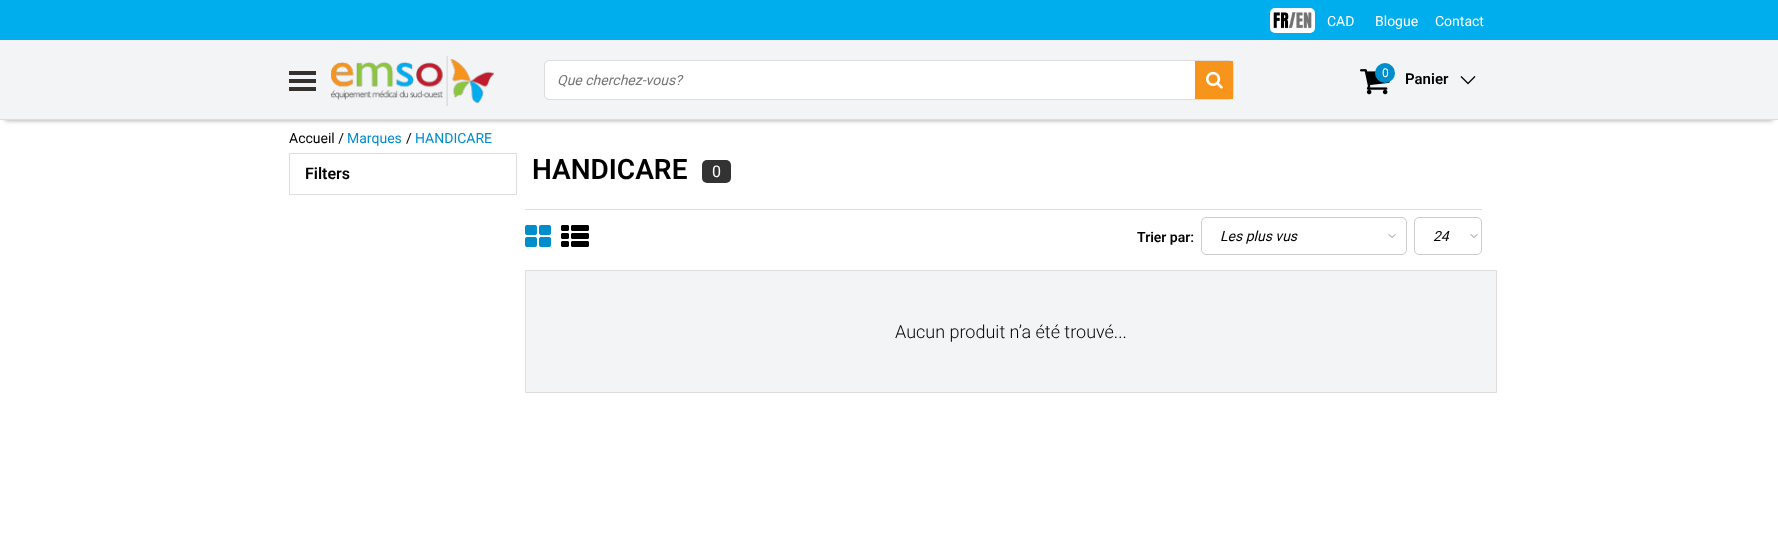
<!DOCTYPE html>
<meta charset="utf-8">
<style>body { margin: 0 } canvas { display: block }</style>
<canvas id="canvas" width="1778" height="536"></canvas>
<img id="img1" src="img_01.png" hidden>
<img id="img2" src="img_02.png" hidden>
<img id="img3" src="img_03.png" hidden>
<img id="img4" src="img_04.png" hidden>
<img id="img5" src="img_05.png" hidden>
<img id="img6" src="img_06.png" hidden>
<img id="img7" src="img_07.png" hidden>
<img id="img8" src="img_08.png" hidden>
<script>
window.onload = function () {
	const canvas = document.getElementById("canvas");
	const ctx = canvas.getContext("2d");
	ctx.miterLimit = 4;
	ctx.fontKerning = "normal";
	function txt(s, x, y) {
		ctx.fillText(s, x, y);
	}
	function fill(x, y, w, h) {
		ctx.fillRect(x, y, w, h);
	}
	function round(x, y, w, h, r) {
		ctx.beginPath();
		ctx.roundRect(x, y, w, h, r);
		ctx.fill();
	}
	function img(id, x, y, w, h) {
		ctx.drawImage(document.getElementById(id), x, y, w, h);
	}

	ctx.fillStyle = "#FFFFFF";
	fill(0, 0, 1778, 536);
	ctx.fillStyle = "#00ADED";
	fill(0, 0, 1778, 40);
	ctx.fillStyle = "#FFFFFF";
	round(1270, 8, 45, 25, 5);
	img("img1", 1273, 8, 39, 25);
	ctx.fillStyle = "rgba(0, 0, 0, 0.4)";
	ctx.filter = "blur(2.5px)";
	ctx.beginPath();
	ctx.rect(5, 50, 1768, 70);
	ctx.fill();
	ctx.filter = "none";
	ctx.fillStyle = "#F3F4F6";
	fill(0, 40, 1778, 79);
	ctx.fillStyle = "#DDDDDD";
	fill(0, 119, 1778, 1);
	ctx.fillStyle = "#34312F";
	fill(289, 71, 27, 4);
	fill(289, 79, 27, 4);
	fill(289, 87, 27, 4);
	img("img2", 331, 56, 163, 50);
	ctx.beginPath();
	ctx.roundRect(544.5, 60.5, 689, 39, 4.5);
	ctx.strokeStyle = "#DDDDDD";
	ctx.stroke();
	ctx.fillStyle = "#FFFFFF";
	round(545, 61, 688, 38, 5);
	ctx.fillStyle = "#F6941B";
	fill(1195, 61, 38, 38);
	img("img3", 1206, 71, 17, 18);
	img("img4", 1360, 69, 30, 26);
	ctx.fillStyle = "#008DCB";
	ctx.beginPath();
	ctx.arc(1385, 73, 10, 0, Math.PI * 2);
	ctx.fill();
	img("img5", 1460, 76, 16, 9);
	ctx.fillStyle = "#DDDDDD";
	fill(289, 153, 228, 1);
	fill(516, 153, 1, 41);
	fill(289, 153, 1, 41);
	fill(289, 194, 228, 1);
	ctx.fillStyle = "#333333";
	round(702, 160, 29, 23, 5);
	ctx.fillStyle = "#DDDDDD";
	fill(525, 209, 957, 1);
	img("img6", 525, 225, 26, 22);
	img("img7", 561, 225, 28, 22);
	img("img8", 1388, 234, 8, 4);
	ctx.beginPath();
	ctx.roundRect(1201.5, 217.5, 205, 37, 4.5);
	ctx.strokeStyle = "#CCCCCC";
	ctx.stroke();
	img("img8", 1470, 234, 8, 4);
	ctx.beginPath();
	ctx.roundRect(1414.5, 217.5, 67, 37, 4.5);
	ctx.stroke();
	ctx.fillStyle = "#F3F4F6";
	ctx.beginPath();
	ctx.rect(525.5, 270.5, 971, 122);
	ctx.fill();
	ctx.strokeStyle = "#DDDDDD";
	ctx.stroke();
	ctx.font = "14px Roboto";
	ctx.fillStyle = "#FFFFFF";
	txt("CAD", 1327, 26);
	txt("Blogue", 1375, 26);
	txt("Contact", 1435, 26);
	ctx.font = "italic 14px Roboto";
	ctx.fillStyle = "#757575";
	txt("Que cherchez-vous?", 557, 85);
	ctx.font = "12px Roboto";
	ctx.fillStyle = "#FFFFFF";
	txt("0", 1382, 77);
	ctx.font = "600 15px Roboto";
	ctx.fillStyle = "#000000";
	txt("Panier", 1405, 84);
	ctx.font = "14px Roboto";
	txt("Accueil /", 289, 143);
	ctx.fillStyle = "#008DCB";
	txt("Marques", 347, 143);
	ctx.fillStyle = "#000000";
	txt("/", 406, 143);
	ctx.fillStyle = "#008DCB";
	txt("HANDICARE", 415, 143);
	ctx.font = "600 16px Roboto";
	ctx.fillStyle = "#000000";
	txt("Filters", 305, 179);
	ctx.font = "600 28px Roboto";
	txt("HANDICARE", 532, 179);
	ctx.font = "16px Roboto";
	ctx.fillStyle = "#FFFFFF";
	txt("0", 712, 177);
	ctx.font = "600 14px Roboto";
	ctx.fillStyle = "#000000";
	txt("Trier par:", 1137, 242);
	ctx.font = "italic 14px Roboto";
	txt("Les plus vus", 1220, 241);
	txt("24", 1433, 241);
	ctx.font = "300 18px Roboto";
	txt("Aucun produit n’a été trouvé...", 895, 338);
};
</script>
